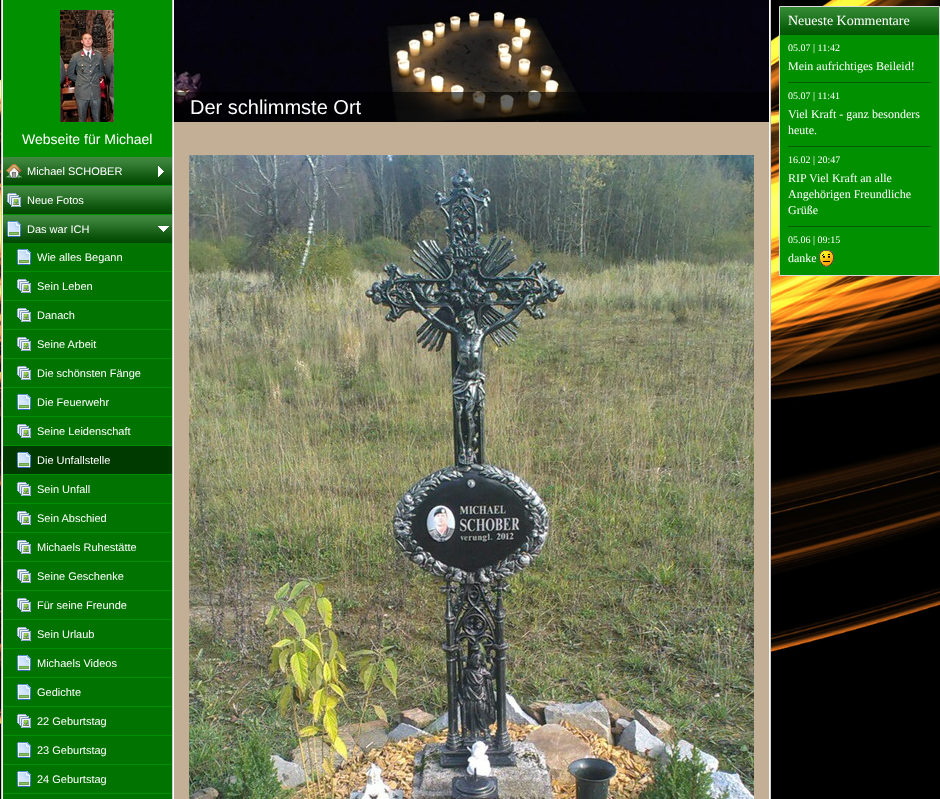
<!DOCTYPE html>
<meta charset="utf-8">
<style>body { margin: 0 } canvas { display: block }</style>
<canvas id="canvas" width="940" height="799"></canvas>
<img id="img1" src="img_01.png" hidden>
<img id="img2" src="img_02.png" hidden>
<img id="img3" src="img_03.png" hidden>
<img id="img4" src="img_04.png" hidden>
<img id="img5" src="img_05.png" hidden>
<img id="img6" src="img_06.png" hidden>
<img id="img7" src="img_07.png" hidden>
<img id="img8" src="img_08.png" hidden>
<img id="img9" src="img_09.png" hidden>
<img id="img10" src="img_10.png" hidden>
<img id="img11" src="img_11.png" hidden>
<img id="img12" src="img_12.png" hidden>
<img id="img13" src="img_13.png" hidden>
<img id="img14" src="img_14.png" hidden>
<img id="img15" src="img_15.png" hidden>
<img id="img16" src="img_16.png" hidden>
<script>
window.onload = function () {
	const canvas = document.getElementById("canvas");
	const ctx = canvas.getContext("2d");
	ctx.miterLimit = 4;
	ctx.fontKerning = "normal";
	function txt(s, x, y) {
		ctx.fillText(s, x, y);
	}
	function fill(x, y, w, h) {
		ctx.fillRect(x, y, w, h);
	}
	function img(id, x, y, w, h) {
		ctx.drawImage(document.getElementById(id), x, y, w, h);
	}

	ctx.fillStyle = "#FFFFFF";
	fill(0, 0, 940, 799);
	img("img1", 0, 0, 940, 799);
	fill(2, 0, 768, 799);
	ctx.fillStyle = "#CCCCCC";
	fill(1, 0, 1, 799);
	fill(172, 0, 1, 799);
	ctx.fillStyle = "#C3AF96";
	fill(174, 122, 595, 677);
	img("img2", 174, 0, 595, 122);
	ctx.fillStyle = "rgba(0, 0, 0, 0.6)";
	fill(174, 92, 595, 30);
	img("img3", 189, 155, 565, 644);
	ctx.fillStyle = "#CCCCCC";
	fill(770, 0, 1, 799);
	ctx.fillStyle = "#009000";
	fill(3, 0, 169, 794);
	img("img4", 60, 10, 54, 112);
	img("img5", 3, 157, 169, 28);
	img("img6", 6, 164, 16, 14);
	img("img7", 158, 166, 6, 11);
	img("img5", 3, 186, 169, 28);
	img("img8", 7, 193, 14, 14);
	img("img5", 3, 215, 169, 28);
	img("img9", 7, 221, 14, 16);
	img("img10", 158, 226, 11, 6);
	ctx.fillStyle = "#007300";
	fill(3, 243, 169, 28);
	img("img11", 17, 249, 14, 16);
	fill(3, 272, 169, 28);
	img("img12", 17, 279, 14, 14);
	fill(3, 301, 169, 28);
	img("img12", 17, 308, 14, 14);
	fill(3, 330, 169, 28);
	img("img12", 17, 337, 14, 14);
	fill(3, 359, 169, 28);
	img("img12", 17, 366, 14, 14);
	fill(3, 388, 169, 28);
	img("img11", 17, 394, 14, 16);
	fill(3, 417, 169, 28);
	img("img12", 17, 424, 14, 14);
	ctx.fillStyle = "#003A00";
	fill(3, 446, 169, 28);
	img("img13", 17, 452, 14, 16);
	ctx.fillStyle = "#007300";
	fill(3, 475, 169, 28);
	img("img12", 17, 482, 14, 14);
	fill(3, 504, 169, 28);
	img("img12", 17, 511, 14, 14);
	fill(3, 533, 169, 28);
	img("img12", 17, 540, 14, 14);
	fill(3, 562, 169, 28);
	img("img12", 17, 569, 14, 14);
	fill(3, 591, 169, 28);
	img("img12", 17, 598, 14, 14);
	fill(3, 620, 169, 28);
	img("img12", 17, 627, 14, 14);
	fill(3, 649, 169, 28);
	img("img11", 17, 655, 14, 16);
	fill(3, 678, 169, 28);
	img("img11", 17, 684, 14, 16);
	fill(3, 707, 169, 28);
	img("img12", 17, 714, 14, 14);
	fill(3, 736, 169, 28);
	img("img11", 17, 742, 14, 16);
	fill(3, 765, 169, 28);
	img("img11", 17, 771, 14, 16);
	fill(3, 794, 169, 5);
	ctx.fillStyle = "#009000";
	ctx.beginPath();
	ctx.rect(779.5, 6.5, 160, 269);
	ctx.fill();
	ctx.strokeStyle = "#DADADA";
	ctx.stroke();
	img("img14", 780, 7, 159, 28);
	img("img15", 788, 82, 143, 1);
	img("img15", 788, 146, 143, 1);
	img("img15", 788, 226, 143, 1);
	img("img16", 819, 250, 15, 17);
	ctx.font = "20px Liberation Sans";
	ctx.fillStyle = "#FFFFFF";
	txt("Der schlimmste Ort", 190, 114);
	ctx.font = "14px Liberation Sans";
	txt("Webseite für Michael", 22, 144);
	ctx.font = "11px Liberation Sans";
	txt("Michael SCHOBER", 27, 175);
	txt("Neue Fotos", 27, 204);
	txt("Das war ICH", 27, 233);
	txt("Wie alles Begann", 37, 261);
	txt("Sein Leben", 37, 290);
	txt("Danach", 37, 319);
	txt("Seine Arbeit", 37, 348);
	txt("Die schönsten Fänge", 37, 377);
	txt("Die Feuerwehr", 37, 406);
	txt("Seine Leidenschaft", 37, 435);
	txt("Die Unfallstelle", 37, 464);
	txt("Sein Unfall", 37, 493);
	txt("Sein Abschied", 37, 522);
	txt("Michaels Ruhestätte", 37, 551);
	txt("Seine Geschenke", 37, 580);
	txt("Für seine Freunde", 37, 609);
	txt("Sein Urlaub", 37, 638);
	txt("Michaels Videos", 37, 667);
	txt("Gedichte", 37, 696);
	txt("22 Geburtstag", 37, 725);
	txt("23 Geburtstag", 37, 754);
	txt("24 Geburtstag", 37, 783);
	ctx.font = "14px Liberation Serif";
	txt("Neueste Kommentare", 788, 25);
	ctx.font = "10px Liberation Serif";
	txt("05.07 | 11:42", 788, 51);
	ctx.font = "12px Liberation Serif";
	txt("Mein aufrichtiges Beileid!", 788, 70);
	ctx.font = "10px Liberation Serif";
	txt("05.07 | 11:41", 788, 99);
	ctx.font = "12px Liberation Serif";
	txt("Viel Kraft - ganz besonders", 788, 118);
	txt("heute.", 788, 134);
	ctx.font = "10px Liberation Serif";
	txt("16.02 | 20:47", 788, 163);
	ctx.font = "12px Liberation Serif";
	txt("RIP Viel Kraft an alle", 788, 182);
	txt("Angehörigen Freundliche", 788, 198);
	txt("Grüße", 788, 214);
	ctx.font = "10px Liberation Serif";
	txt("05.06 | 09:15", 788, 243);
	ctx.font = "12px Liberation Serif";
	txt("danke", 788, 262);
};
</script>
